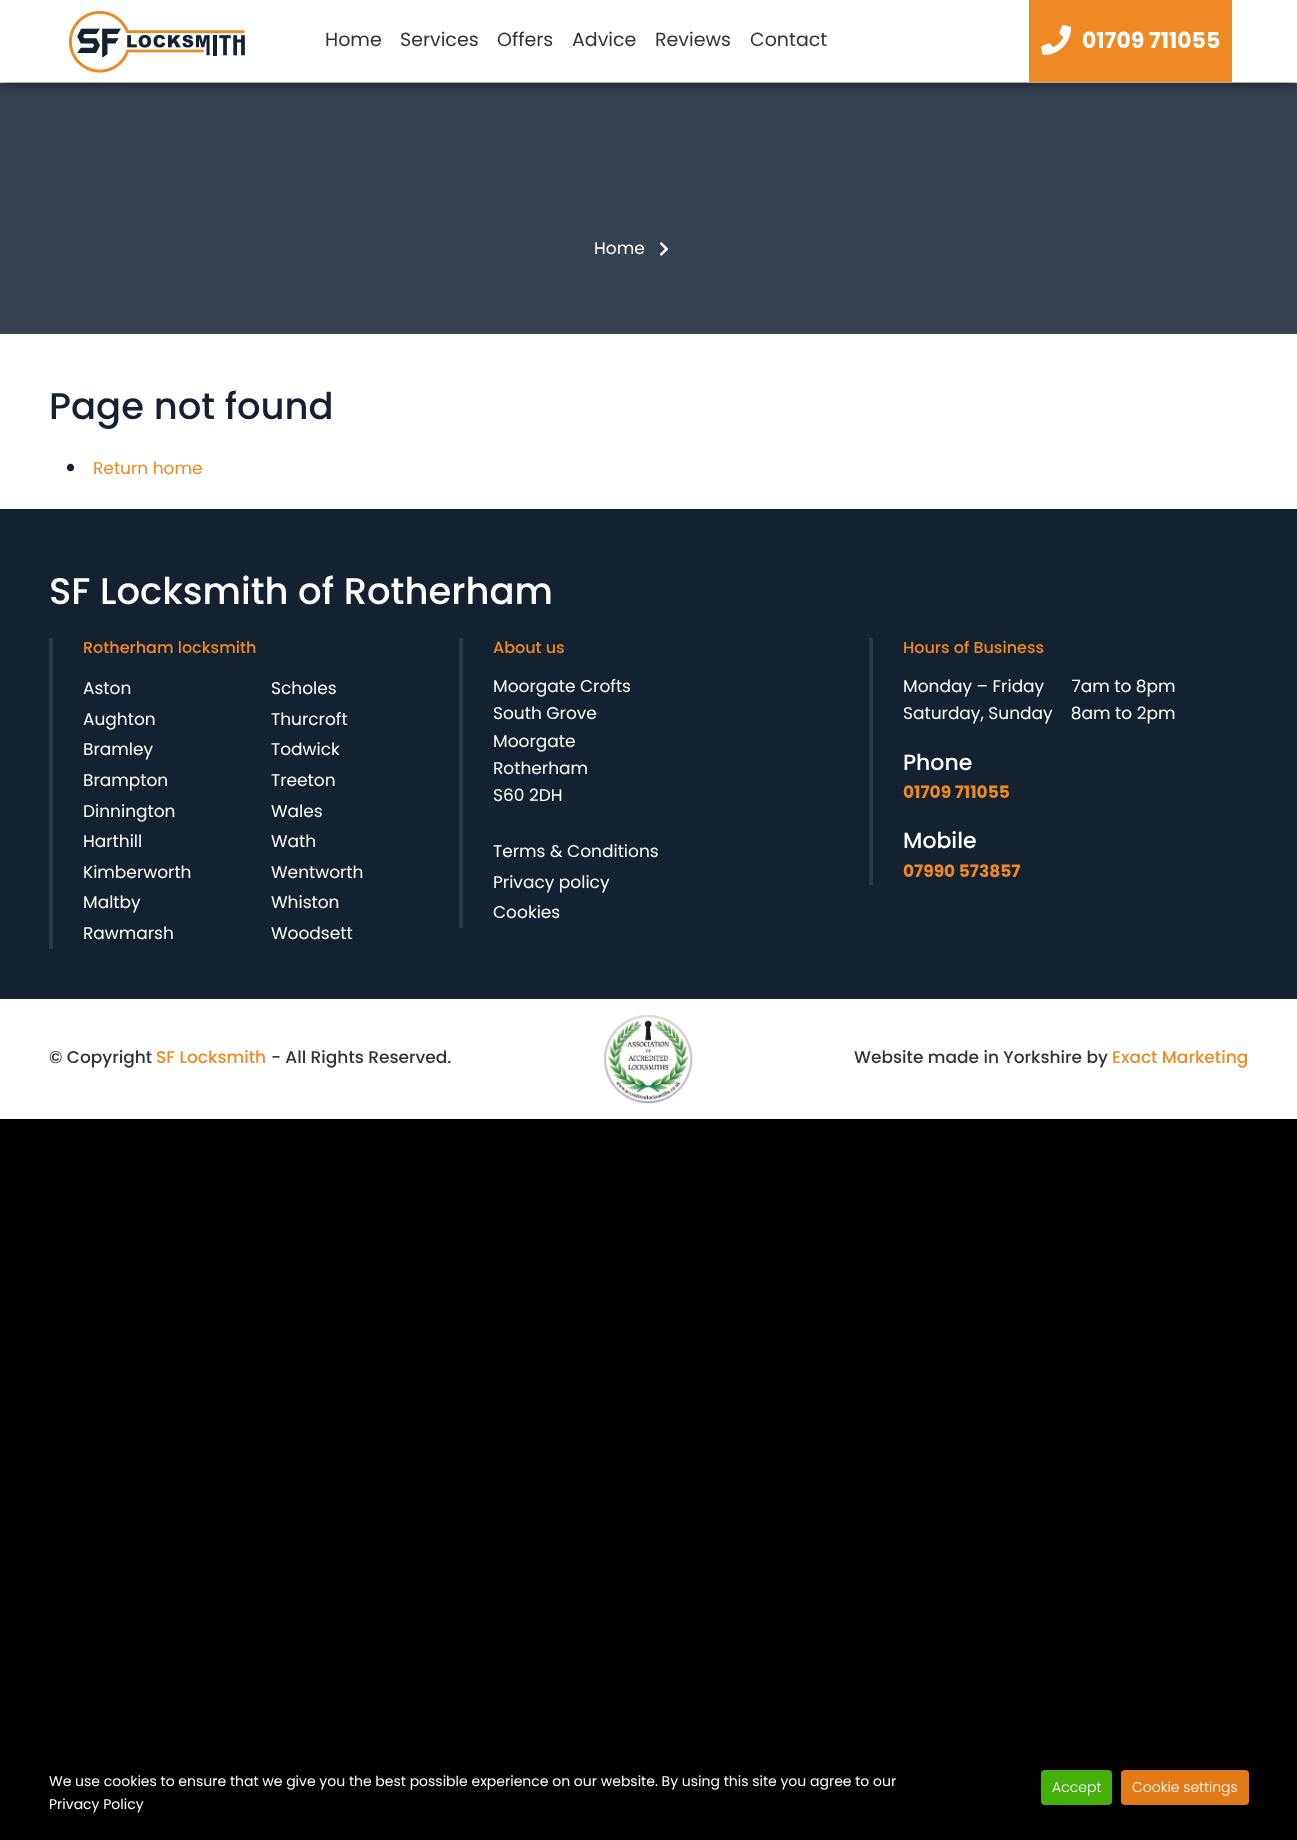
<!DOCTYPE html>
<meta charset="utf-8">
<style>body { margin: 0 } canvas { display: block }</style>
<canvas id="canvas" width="1297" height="1840"></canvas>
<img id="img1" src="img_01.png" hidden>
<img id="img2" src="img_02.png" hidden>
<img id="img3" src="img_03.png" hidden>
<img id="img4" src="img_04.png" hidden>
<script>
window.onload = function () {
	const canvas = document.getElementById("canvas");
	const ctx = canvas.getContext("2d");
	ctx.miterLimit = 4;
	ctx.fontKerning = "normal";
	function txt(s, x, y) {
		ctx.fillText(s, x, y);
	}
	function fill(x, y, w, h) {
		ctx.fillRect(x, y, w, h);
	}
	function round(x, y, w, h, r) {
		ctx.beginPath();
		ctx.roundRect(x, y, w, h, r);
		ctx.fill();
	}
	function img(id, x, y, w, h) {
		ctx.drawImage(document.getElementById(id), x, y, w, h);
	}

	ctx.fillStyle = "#000000";
	fill(0, 0, 1297, 1840);
	ctx.fillStyle = "#FFFFFF";
	fill(0, 0, 1297, 1119);
	ctx.fillStyle = "#374250";
	fill(0, 83, 1297, 251);
	ctx.save();
	ctx.beginPath();
	ctx.rect(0, 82, 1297, 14);
	ctx.clip();
	ctx.fillStyle = "rgba(0, 0, 0, 0.7)";
	ctx.filter = "blur(7.5px)";
	ctx.beginPath();
	ctx.rect(0, 0, 1297, 82);
	ctx.fill();
	ctx.filter = "none";
	ctx.restore();
	img("img1", 68, 10, 177, 63);
	ctx.fillStyle = "#EF8923";
	fill(1029, 0, 203, 82);
	img("img2", 1041, 25, 30, 30);
	img("img3", 659, 242, 10, 14);
	ctx.fillStyle = "#142131";
	fill(0, 509, 1297, 490);
	ctx.fillStyle = "#2C3746";
	fill(49, 638, 4, 311);
	fill(459, 638, 4, 290);
	fill(869, 638, 4, 247);
	img("img4", 604, 1015, 89, 89);
	ctx.fillStyle = "#45AF0C";
	round(1041, 1770, 71, 35, 4);
	ctx.fillStyle = "#E27A18";
	round(1121, 1770, 128, 35, 4);
	ctx.font = "19px Poppins";
	ctx.fillStyle = "#333333";
	txt("Home", 325, 46);
	txt("Services", 400, 46);
	txt("Offers", 497, 46);
	txt("Advice", 572, 46);
	txt("Reviews", 655, 46);
	txt("Contact", 750, 46);
	ctx.font = "bold 22px Poppins";
	ctx.fillStyle = "#FFFFFF";
	txt("01709 711055", 1082, 48);
	ctx.font = "17px Poppins";
	txt("Home", 594, 254);
	ctx.font = "500 37px Poppins";
	ctx.fillStyle = "#142131";
	txt("Page not found", 49, 419);
	ctx.font = "60px Poppins";
	txt("·", 64, 488);
	ctx.font = "17px Poppins";
	ctx.fillStyle = "#EF8923";
	txt("Return home", 93, 474);
	ctx.font = "500 37px Poppins";
	ctx.fillStyle = "#FFFFFF";
	txt("SF Locksmith of Rotherham", 49, 604);
	ctx.font = "500 16px Poppins";
	ctx.fillStyle = "#EF8923";
	txt("Rotherham locksmith", 83, 653);
	ctx.font = "17px Poppins";
	ctx.fillStyle = "#FFFFFF";
	txt("Aston", 83, 694);
	txt("Aughton", 83, 725);
	txt("Bramley", 83, 755);
	txt("Brampton", 83, 786);
	txt("Dinnington", 83, 817);
	txt("Harthill", 83, 847);
	txt("Kimberworth", 83, 878);
	txt("Maltby", 83, 908);
	txt("Rawmarsh", 83, 939);
	txt("Scholes", 271, 694);
	txt("Thurcroft", 271, 725);
	txt("Todwick", 271, 755);
	txt("Treeton", 271, 786);
	txt("Wales", 271, 817);
	txt("Wath", 271, 847);
	txt("Wentworth", 271, 878);
	txt("Whiston", 271, 908);
	txt("Woodsett", 271, 939);
	ctx.font = "500 16px Poppins";
	ctx.fillStyle = "#EF8923";
	txt("About us", 493, 653);
	ctx.font = "17px Poppins";
	ctx.fillStyle = "#FFFFFF";
	txt("Moorgate Crofts", 493, 692);
	txt("South Grove", 493, 719);
	txt("Moorgate", 493, 747);
	txt("Rotherham", 493, 774);
	txt("S60 2DH", 493, 801);
	txt("Terms & Conditions", 493, 857);
	txt("Privacy policy", 493, 888);
	txt("Cookies", 493, 918);
	ctx.font = "500 16px Poppins";
	ctx.fillStyle = "#EF8923";
	txt("Hours of Business", 903, 653);
	ctx.font = "17px Poppins";
	ctx.fillStyle = "#FFFFFF";
	txt("Monday – Friday      7am to 8pm", 903, 692);
	txt("Saturday, Sunday    8am to 2pm", 903, 719);
	ctx.font = "500 22px Poppins";
	txt("Phone", 903, 770);
	ctx.font = "bold 17px Poppins";
	ctx.fillStyle = "#EF8923";
	txt("01709 711055", 903, 798);
	ctx.font = "500 22px Poppins";
	ctx.fillStyle = "#FFFFFF";
	txt("Mobile", 903, 848);
	ctx.font = "bold 17px Poppins";
	ctx.fillStyle = "#EF8923";
	txt("07990 573857", 903, 877);
	ctx.font = "500 17px Poppins";
	ctx.fillStyle = "#333333";
	txt("© Copyright", 49, 1063);
	ctx.fillStyle = "#EF8923";
	txt("SF Locksmith", 156, 1063);
	ctx.fillStyle = "#333333";
	txt("- All Rights Reserved.", 271, 1063);
	txt("Website made in Yorkshire by", 854, 1063);
	ctx.fillStyle = "#EF8923";
	txt("Exact Marketing", 1112, 1063);
	ctx.font = "14px Poppins";
	ctx.fillStyle = "#FFFFFF";
	txt("We use cookies to ensure that we give you the best possible experience on our website. By using this site you agree to our", 49, 1786);
	txt("Privacy Policy", 49, 1809);
	ctx.font = "300 14px Poppins";
	txt("Accept", 1052, 1792);
	txt("Cookie settings", 1132, 1792);
};
</script>
